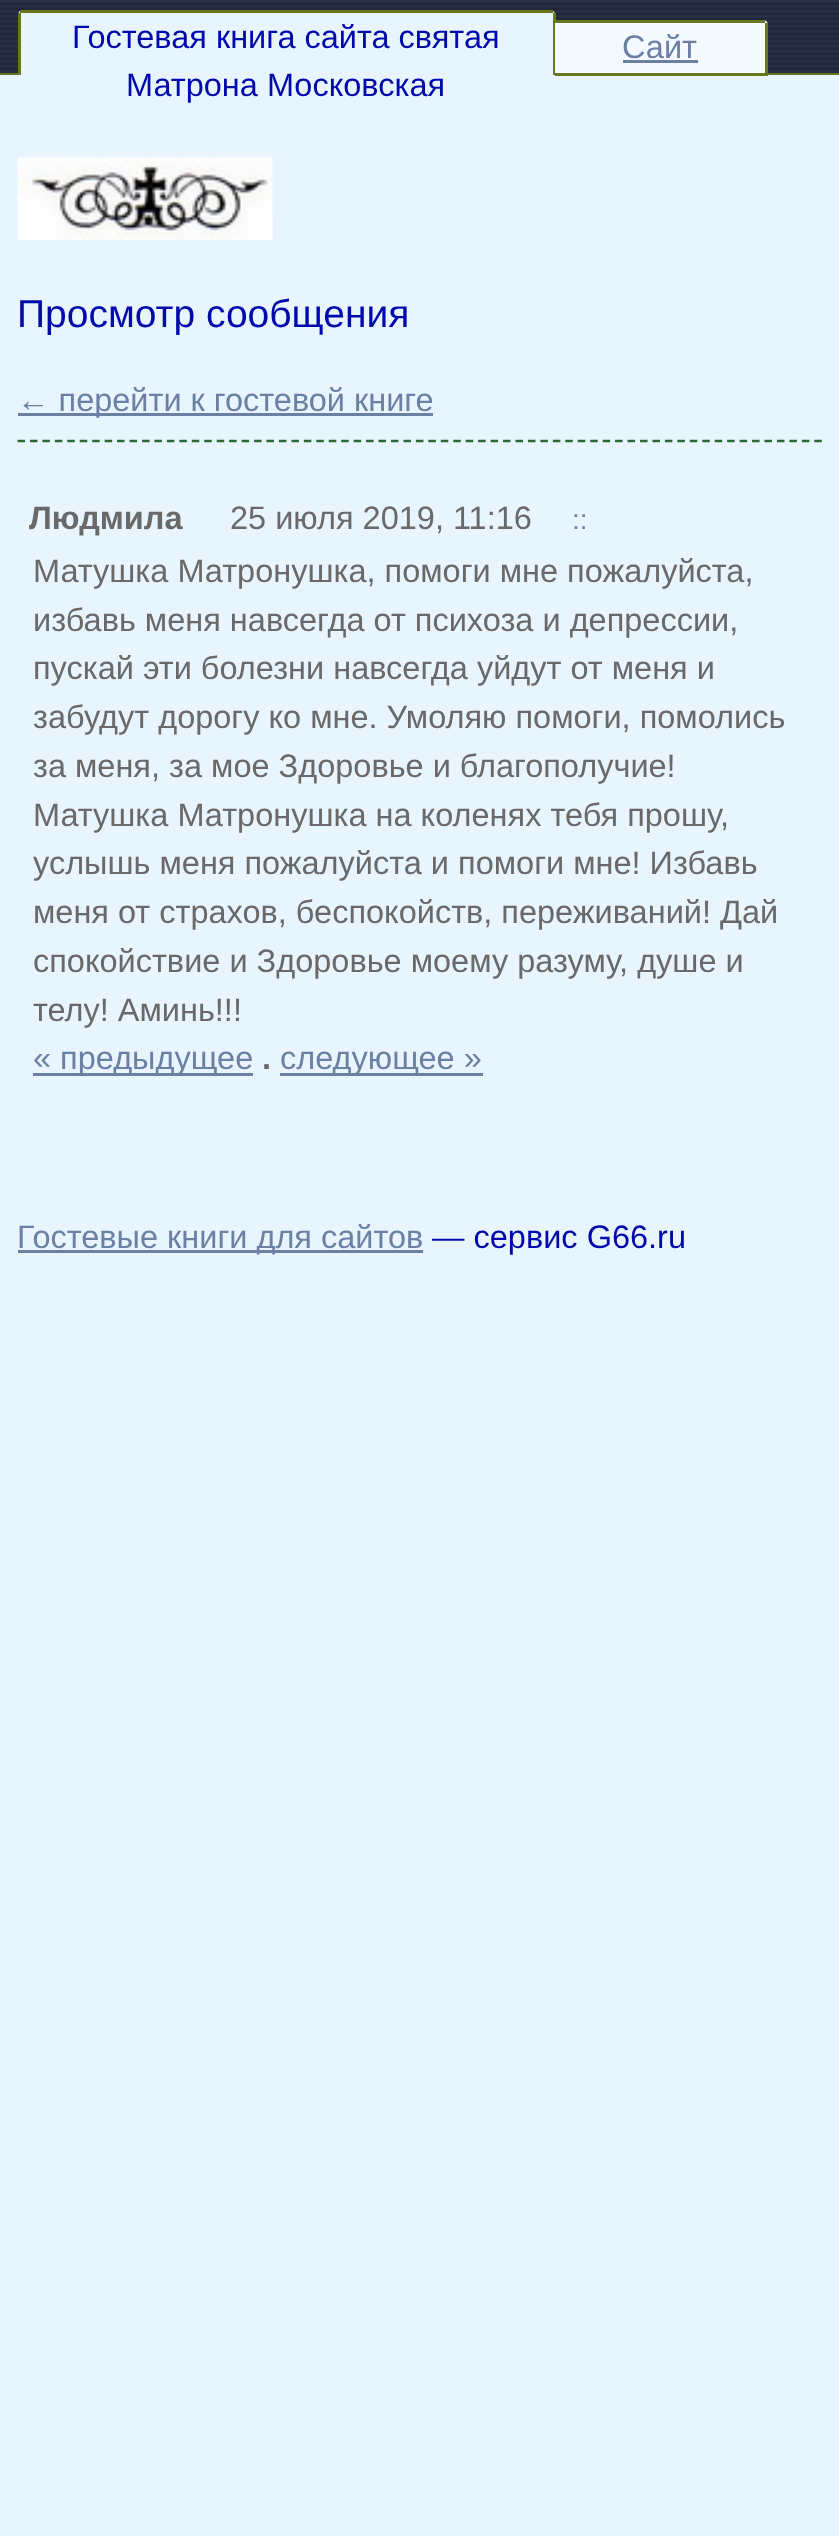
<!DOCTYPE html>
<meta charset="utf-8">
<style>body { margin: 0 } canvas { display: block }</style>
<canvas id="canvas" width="839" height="2536"></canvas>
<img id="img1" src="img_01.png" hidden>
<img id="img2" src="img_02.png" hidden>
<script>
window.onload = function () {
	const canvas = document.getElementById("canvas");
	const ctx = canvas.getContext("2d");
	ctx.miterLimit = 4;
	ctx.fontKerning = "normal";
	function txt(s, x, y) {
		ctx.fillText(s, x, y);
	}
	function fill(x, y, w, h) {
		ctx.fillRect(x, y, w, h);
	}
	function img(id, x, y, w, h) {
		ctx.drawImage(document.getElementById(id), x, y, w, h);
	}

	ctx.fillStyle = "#E8F5FF";
	fill(0, 0, 839, 2536);
	ctx.fillStyle = "#21273D";
	fill(0, 0, 839, 73);
	img("img1", 0, 0, 839, 73);
	ctx.fillStyle = "#667720";
	fill(0, 73, 839, 2);
	ctx.fillStyle = "#E8F5FF";
	ctx.beginPath();
	ctx.roundRect(18, 10, 537, 65, [5, 5, 0, 0]);
	ctx.fill();
	ctx.fillStyle = "#667720";
	fill(20, 10, 533, 3);
	fill(553, 13, 3, 62);
	fill(18, 13, 3, 62);
	ctx.fillStyle = "#F4FAFF";
	ctx.beginPath();
	ctx.roundRect(555, 20, 213, 55, [0, 5, 0, 0]);
	ctx.fill();
	ctx.fillStyle = "#667720";
	fill(555, 20, 210, 3);
	fill(765, 23, 3, 52);
	fill(555, 73, 213, 3);
	ctx.fillStyle = "#6B80A3";
	fill(623, 60, 75, 3);
	img("img2", 17, 157, 256, 83);
	fill(18, 413, 415, 3);
	ctx.beginPath();
	ctx.moveTo(17.5, 441);
	ctx.lineTo(822.5, 441);
	ctx.strokeStyle = "#2B6933";
	ctx.lineWidth = 2.5;
	ctx.setLineDash([7.5, 4.95]);
	ctx.stroke();
	fill(33, 1073, 220, 3);
	fill(280, 1073, 203, 3);
	fill(18, 1250, 405, 3);
	ctx.font = "32.5px Liberation Sans";
	ctx.fillStyle = "#0009AB";
	txt("Гостевая книга сайта святая", 72, 48);
	txt("Матрона Московская", 126, 96);
	ctx.fillStyle = "#6B80A3";
	txt("Сайт", 622, 58);
	ctx.font = "39px Liberation Sans";
	ctx.fillStyle = "#0009AB";
	txt("Просмотр сообщения", 17, 327);
	ctx.font = "32.5px Liberation Sans";
	ctx.fillStyle = "#6B80A3";
	txt("← перейти к гостевой книге", 17, 411);
	ctx.font = "bold 32.5px Liberation Sans";
	ctx.fillStyle = "#696969";
	txt("Людмила", 29, 529);
	ctx.font = "32.5px Liberation Sans";
	txt("25 июля 2019, 11:16", 230, 529);
	ctx.font = "28px Liberation Sans";
	ctx.fillStyle = "#6B80A3";
	txt("::", 572, 529);
	ctx.font = "32.5px Liberation Sans";
	ctx.fillStyle = "#696969";
	txt("Матушка Матронушка, помоги мне пожалуйста,", 33, 582);
	txt("избавь меня навсегда от психоза и депрессии,", 33, 631);
	txt("пускай эти болезни навсегда уйдут от меня и", 33, 679);
	txt("забудут дорогу ко мне. Умоляю помоги, помолись", 33, 728);
	txt("за меня, за мое Здоровье и благополучие!", 33, 777);
	txt("Матушка Матронушка на коленях тебя прошу,", 33, 826);
	txt("услышь меня пожалуйста и помоги мне! Избавь", 33, 874);
	txt("меня от страхов, беспокойств, переживаний! Дай", 33, 923);
	txt("спокойствие и Здоровье моему разуму, душе и", 33, 972);
	txt("телу! Аминь!!!", 33, 1021);
	ctx.fillStyle = "#6B80A3";
	txt("« предыдущее", 33, 1069);
	ctx.font = "bold 32.5px Liberation Sans";
	ctx.fillStyle = "#696969";
	txt(".", 262, 1069);
	ctx.font = "32.5px Liberation Sans";
	ctx.fillStyle = "#6B80A3";
	txt("следующее »", 280, 1069);
	txt("Гостевые книги для сайтов", 17, 1248);
	ctx.fillStyle = "#0009AB";
	txt("— сервис G66.ru", 432, 1248);
};
</script>
